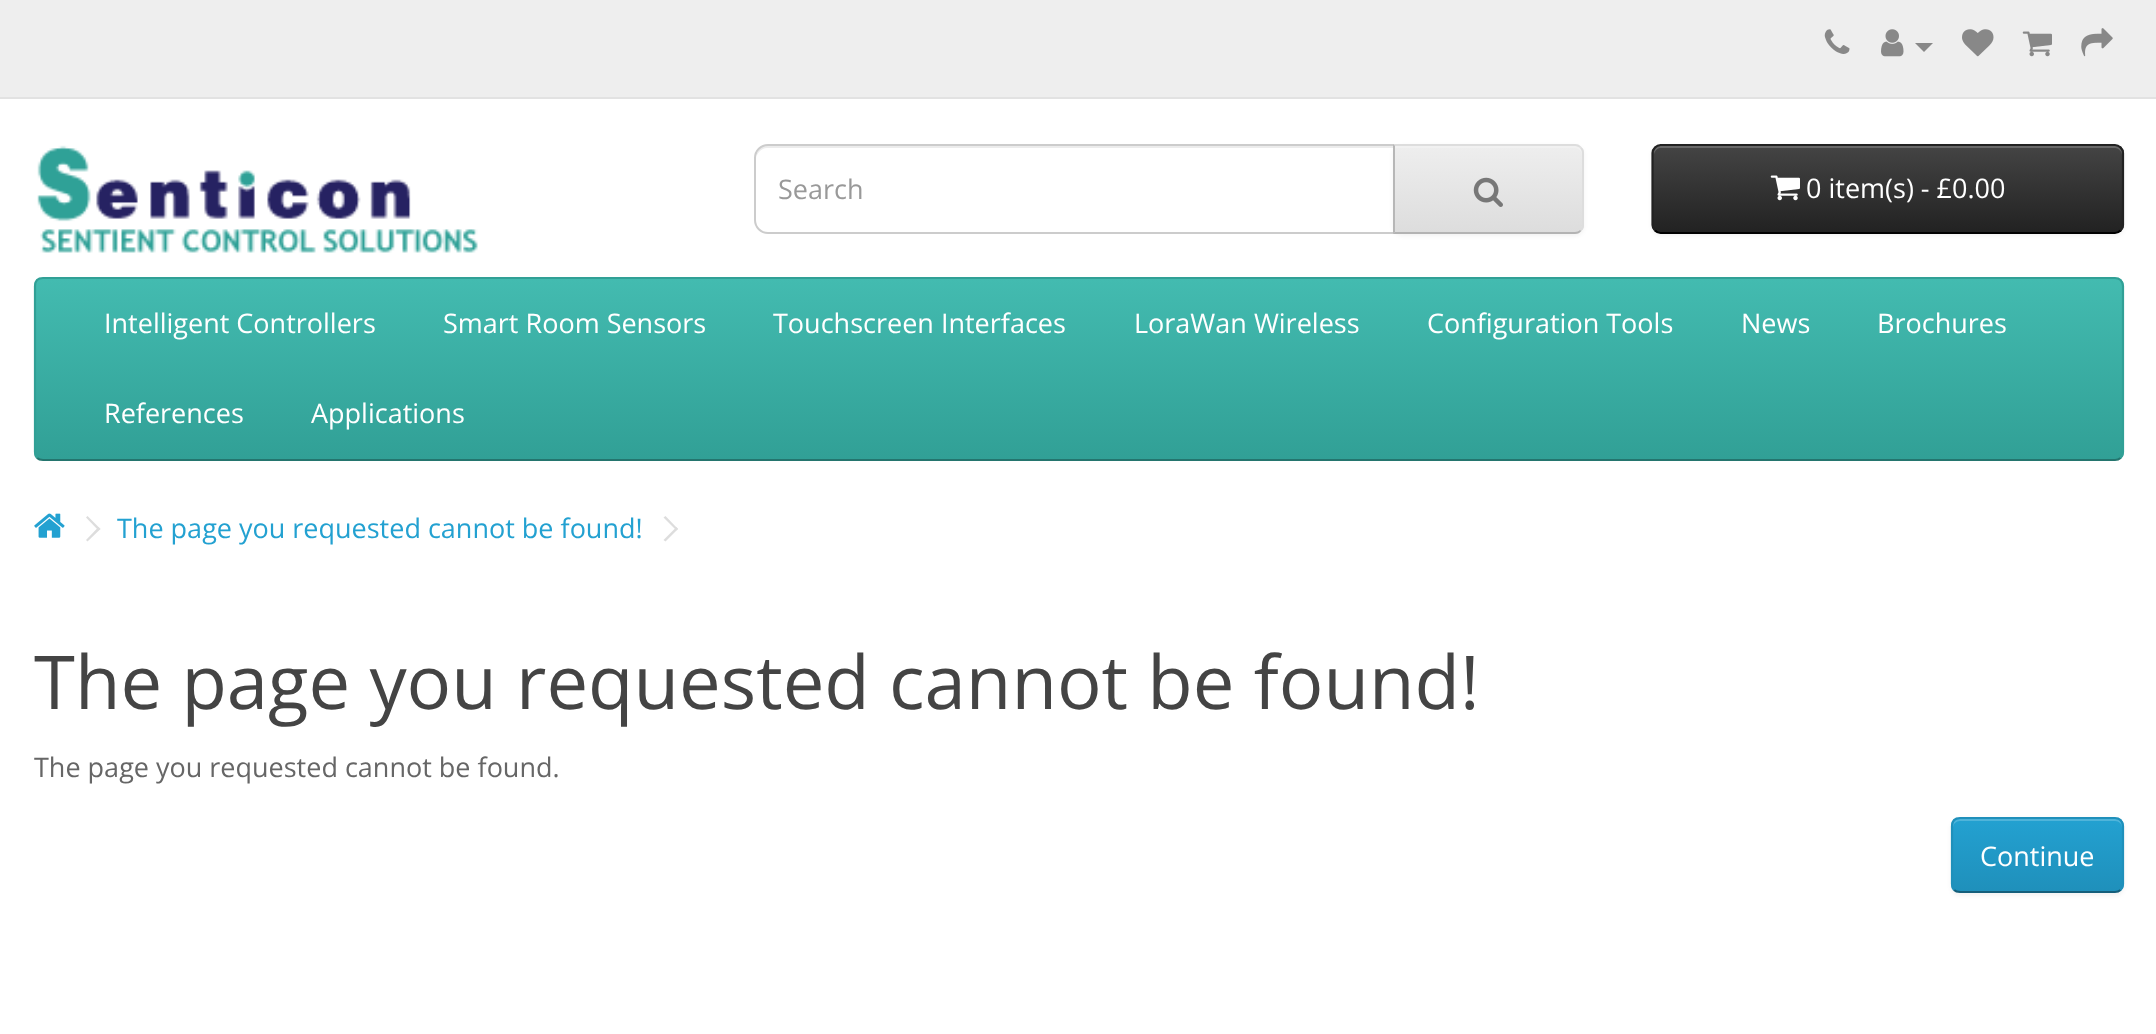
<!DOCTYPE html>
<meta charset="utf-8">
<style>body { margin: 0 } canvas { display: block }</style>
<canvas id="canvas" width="2156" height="1034"></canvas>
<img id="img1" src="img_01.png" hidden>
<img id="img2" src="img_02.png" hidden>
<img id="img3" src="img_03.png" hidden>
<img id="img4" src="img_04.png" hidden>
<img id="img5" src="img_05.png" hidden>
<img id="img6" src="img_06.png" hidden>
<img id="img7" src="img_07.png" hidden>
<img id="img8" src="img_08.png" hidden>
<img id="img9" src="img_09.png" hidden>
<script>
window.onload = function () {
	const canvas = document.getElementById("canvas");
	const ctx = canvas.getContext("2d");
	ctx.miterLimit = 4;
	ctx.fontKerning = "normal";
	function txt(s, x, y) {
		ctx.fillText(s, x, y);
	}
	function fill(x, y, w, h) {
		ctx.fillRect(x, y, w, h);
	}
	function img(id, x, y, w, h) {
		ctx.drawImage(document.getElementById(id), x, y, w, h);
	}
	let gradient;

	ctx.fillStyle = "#FFFFFF";
	fill(0, 0, 2156, 1034);
	ctx.fillStyle = "#EEEEEE";
	fill(0, 0, 2156, 97);
	ctx.fillStyle = "#E2E2E2";
	fill(0, 97, 2156, 2);
	img("img1", 1824, 29, 26, 25);
	img("img2", 1881, 29, 23, 28);
	ctx.fillStyle = "#888888";
	ctx.beginPath();
	ctx.moveTo(1915, 43);
	ctx.lineTo(1933, 43);
	ctx.lineTo(1924, 52);
	ctx.closePath();
	ctx.fill();
	img("img3", 1962, 29, 32, 28);
	img("img4", 2022, 31, 30, 26);
	img("img5", 2081, 28, 32, 29);
	img("img6", 37, 145, 441, 108);
	ctx.fillStyle = "#ECECEC";
	ctx.beginPath();
	ctx.moveTo(767, 148);
	ctx.lineTo(1393, 148);
	ctx.lineTo(1393, 146);
	ctx.lineTo(767, 146);
	ctx.bezierCurveTo(759, 146, 756, 153, 756, 160);
	ctx.bezierCurveTo(756, 154, 761, 148, 767, 148);
	ctx.closePath();
	ctx.fill();
	ctx.beginPath();
	ctx.roundRect(755, 145, 639, 88, [13, 0, 0, 13]);
	ctx.strokeStyle = "#CCCCCC";
	ctx.lineWidth = 2;
	ctx.stroke();
	ctx.fillStyle = "rgba(0, 0, 0, 0.05)";
	ctx.filter = "blur(2px)";
	ctx.beginPath();
	ctx.roundRect(1393, 146, 191, 90, 9);
	ctx.fill();
	ctx.filter = "none";
	ctx.save();
	ctx.beginPath();
	ctx.roundRect(1393, 144, 191, 90, [0, 9, 9, 0]);
	ctx.clip();
	gradient = ctx.createLinearGradient(1488, 146, 1488, 232);
	gradient.addColorStop(0, "#EEEEEE");
	gradient.addColorStop(1, "#DDDDDD");
	ctx.fillStyle = gradient;
	fill(1395, 146, 189, 86);
	ctx.restore();
	ctx.fillStyle = "#F1F1F1";
	ctx.beginPath();
	ctx.moveTo(1395, 148);
	ctx.lineTo(1575, 148);
	ctx.bezierCurveTo(1579, 148, 1582, 152, 1582, 155);
	ctx.lineTo(1582, 153);
	ctx.bezierCurveTo(1582, 149, 1579, 146, 1575, 146);
	ctx.lineTo(1395, 146);
	ctx.closePath();
	ctx.fill();
	ctx.fillStyle = "#DDDDDD";
	ctx.beginPath();
	ctx.moveTo(1393, 144);
	ctx.lineTo(1395, 146);
	ctx.lineTo(1575, 146);
	ctx.bezierCurveTo(1577, 146, 1579, 147, 1580, 148);
	ctx.lineTo(1581, 147);
	ctx.bezierCurveTo(1580, 145, 1578, 144, 1575, 144);
	ctx.closePath();
	ctx.fill();
	ctx.beginPath();
	ctx.moveTo(1584, 225);
	ctx.lineTo(1584, 153);
	ctx.bezierCurveTo(1584, 150, 1583, 148, 1581, 147);
	ctx.lineTo(1580, 148);
	ctx.bezierCurveTo(1581, 149, 1582, 151, 1582, 153);
	ctx.lineTo(1582, 225);
	ctx.bezierCurveTo(1582, 227, 1581, 229, 1580, 230);
	ctx.lineTo(1581, 231);
	ctx.bezierCurveTo(1583, 230, 1584, 228, 1584, 225);
	ctx.closePath();
	ctx.fill();
	ctx.fillStyle = "#B3B3B3";
	ctx.beginPath();
	ctx.moveTo(1393, 234);
	ctx.lineTo(1575, 234);
	ctx.bezierCurveTo(1578, 234, 1580, 233, 1581, 231);
	ctx.lineTo(1580, 230);
	ctx.bezierCurveTo(1579, 231, 1577, 232, 1575, 232);
	ctx.lineTo(1395, 232);
	ctx.closePath();
	ctx.fill();
	ctx.fillStyle = "#B7B7B7";
	ctx.beginPath();
	ctx.moveTo(1393, 144);
	ctx.lineTo(1393, 234);
	ctx.lineTo(1395, 232);
	ctx.lineTo(1395, 146);
	ctx.closePath();
	ctx.fill();
	img("img7", 1473, 177, 30, 30);
	ctx.fillStyle = "rgba(0, 0, 0, 0.05)";
	ctx.filter = "blur(2px)";
	ctx.beginPath();
	ctx.roundRect(1652, 146, 472, 90, 9);
	ctx.fill();
	ctx.filter = "none";
	ctx.save();
	ctx.beginPath();
	ctx.roundRect(1652, 144, 472, 90, 9);
	ctx.clip();
	gradient = ctx.createLinearGradient(1888, 146, 1888, 232);
	gradient.addColorStop(0, "#444444");
	gradient.addColorStop(1, "#222222");
	ctx.fillStyle = gradient;
	fill(1652, 146, 472, 86);
	ctx.restore();
	ctx.fillStyle = "rgba(255, 255, 255, 0.2)";
	ctx.beginPath();
	ctx.moveTo(1660, 148);
	ctx.lineTo(2115, 148);
	ctx.bezierCurveTo(2119, 148, 2122, 152, 2122, 155);
	ctx.lineTo(2122, 153);
	ctx.bezierCurveTo(2122, 149, 2119, 146, 2115, 146);
	ctx.lineTo(1661, 146);
	ctx.bezierCurveTo(1657, 146, 1654, 149, 1654, 153);
	ctx.lineTo(1654, 155);
	ctx.bezierCurveTo(1654, 152, 1657, 148, 1660, 148);
	ctx.closePath();
	ctx.fill();
	ctx.beginPath();
	ctx.moveTo(2120.5, 230.5);
	ctx.bezierCurveTo(2119, 232, 2117, 233, 2115, 233);
	ctx.lineTo(1660.5, 233);
	ctx.bezierCurveTo(1658.5, 233, 1656.5, 232, 1655, 230.5);
	ctx.strokeStyle = "#000000";
	ctx.lineWidth = 2.2;
	ctx.stroke();
	ctx.beginPath();
	ctx.moveTo(1655, 230.5);
	ctx.bezierCurveTo(1653.5, 229, 1652.5, 227, 1652.5, 225);
	ctx.lineTo(1652.5, 153);
	ctx.bezierCurveTo(1652.5, 151, 1653.5, 149, 1655, 147.5);
	ctx.bezierCurveTo(1656.5, 146, 1658.5, 145, 1660.5, 145);
	ctx.lineTo(2115, 145);
	ctx.bezierCurveTo(2117, 145, 2119, 146, 2120.5, 147.5);
	ctx.bezierCurveTo(2122, 149, 2123, 151, 2123, 153);
	ctx.lineTo(2123, 225);
	ctx.bezierCurveTo(2123, 227, 2122, 229, 2120.5, 230.5);
	ctx.strokeStyle = "#222222";
	ctx.stroke();
	img("img8", 1770, 175, 30, 26);
	ctx.save();
	ctx.beginPath();
	ctx.roundRect(34, 277, 2090, 184, 9);
	ctx.clip();
	gradient = ctx.createLinearGradient(1079, 279, 1079, 459);
	gradient.addColorStop(0, "#43BBB0");
	gradient.addColorStop(1, "#31A096");
	ctx.fillStyle = gradient;
	fill(34, 279, 2090, 180);
	ctx.restore();
	ctx.beginPath();
	ctx.moveTo(2120.5, 458);
	ctx.bezierCurveTo(2119, 459.5, 2117, 460, 2115, 460);
	ctx.lineTo(43, 460);
	ctx.bezierCurveTo(40.5, 460, 38.5, 459.5, 37, 458);
	ctx.strokeStyle = "#24756E";
	ctx.stroke();
	ctx.beginPath();
	ctx.moveTo(37, 458);
	ctx.bezierCurveTo(35.5, 456.5, 35, 454.5, 35, 452);
	ctx.lineTo(35, 286);
	ctx.bezierCurveTo(35, 283.5, 35.5, 281.5, 37, 280);
	ctx.bezierCurveTo(38.5, 278.5, 40.5, 278, 43, 278);
	ctx.lineTo(2115, 278);
	ctx.bezierCurveTo(2117, 278, 2119, 278.5, 2120.5, 280);
	ctx.bezierCurveTo(2122, 281.5, 2123, 283.5, 2123, 286);
	ctx.lineTo(2123, 452);
	ctx.bezierCurveTo(2123, 454.5, 2122, 456.5, 2120.5, 458);
	ctx.strokeStyle = "#31A096";
	ctx.stroke();
	img("img9", 34, 513, 31, 25);
	ctx.fillStyle = "#DDDDDD";
	ctx.beginPath();
	ctx.moveTo(86, 517.5);
	ctx.lineTo(87.5, 516);
	ctx.lineTo(100.5, 529);
	ctx.lineTo(98.5, 530.5);
	ctx.closePath();
	ctx.fill();
	ctx.beginPath();
	ctx.moveTo(86, 540);
	ctx.lineTo(98.5, 527);
	ctx.lineTo(100.5, 529);
	ctx.lineTo(87.5, 541.5);
	ctx.closePath();
	ctx.fill();
	ctx.beginPath();
	ctx.moveTo(663.5, 517.5);
	ctx.lineTo(665.5, 516);
	ctx.lineTo(678, 529);
	ctx.lineTo(676.5, 530.5);
	ctx.closePath();
	ctx.fill();
	ctx.beginPath();
	ctx.moveTo(663.5, 540);
	ctx.lineTo(676.5, 527);
	ctx.lineTo(678, 529);
	ctx.lineTo(665.5, 541.5);
	ctx.closePath();
	ctx.fill();
	ctx.fillStyle = "rgba(0, 0, 0, 0.05)";
	ctx.filter = "blur(2px)";
	ctx.beginPath();
	ctx.roundRect(1951, 819, 173, 77, 9);
	ctx.fill();
	ctx.filter = "none";
	ctx.save();
	ctx.beginPath();
	ctx.roundRect(1951, 817, 173, 76, 9);
	ctx.clip();
	gradient = ctx.createLinearGradient(2037, 819, 2037, 891);
	gradient.addColorStop(0, "#23A1D1");
	gradient.addColorStop(1, "#1F90BB");
	ctx.fillStyle = gradient;
	fill(1951, 819, 173, 72);
	ctx.restore();
	ctx.fillStyle = "#4FB4DA";
	ctx.beginPath();
	ctx.moveTo(1960, 821);
	ctx.lineTo(2115, 821);
	ctx.bezierCurveTo(2119, 821, 2122, 824, 2122, 828);
	ctx.lineTo(2122, 826);
	ctx.bezierCurveTo(2122, 822, 2119, 819, 2115, 819);
	ctx.lineTo(1960, 819);
	ctx.bezierCurveTo(1956, 819, 1953, 822, 1953, 826);
	ctx.lineTo(1953, 828);
	ctx.bezierCurveTo(1953, 824, 1956, 821, 1960, 821);
	ctx.closePath();
	ctx.fill();
	ctx.beginPath();
	ctx.moveTo(2120.5, 890);
	ctx.bezierCurveTo(2119, 891.5, 2117, 892, 2115, 892);
	ctx.lineTo(1960, 892);
	ctx.bezierCurveTo(1957.5, 892, 1955.5, 891.5, 1954, 890);
	ctx.strokeStyle = "#145E7A";
	ctx.stroke();
	ctx.beginPath();
	ctx.moveTo(1954, 890);
	ctx.bezierCurveTo(1952.5, 888.5, 1952, 886.5, 1952, 884);
	ctx.lineTo(1952, 826);
	ctx.bezierCurveTo(1952, 823.5, 1952.5, 821.5, 1954, 820);
	ctx.bezierCurveTo(1955.5, 818.5, 1957.5, 818, 1960, 818);
	ctx.lineTo(2115, 818);
	ctx.bezierCurveTo(2117, 818, 2119, 818.5, 2120.5, 820);
	ctx.bezierCurveTo(2122, 821.5, 2123, 823.5, 2123, 826);
	ctx.lineTo(2123, 884);
	ctx.bezierCurveTo(2123, 886.5, 2122, 888.5, 2120.5, 890);
	ctx.strokeStyle = "#1F90BB";
	ctx.stroke();
	ctx.font = "27px Open Sans";
	ctx.fillStyle = "#999999";
	txt("Search", 778, 199);
	ctx.fillStyle = "#FFFFFF";
	txt("0 item(s) - £0.00", 1806, 198);
	txt("Intelligent Controllers", 104, 333);
	txt("Smart Room Sensors", 443, 333);
	txt("Touchscreen Interfaces", 773, 333);
	txt("LoraWan Wireless", 1134, 333);
	txt("Configuration Tools", 1427, 333);
	txt("News", 1741, 333);
	txt("Brochures", 1877, 333);
	txt("References", 104, 423);
	txt("Applications", 311, 423);
	ctx.fillStyle = "#23A1D1";
	txt("The page you requested cannot be found!", 117, 538);
	ctx.font = "74.25px Open Sans";
	ctx.fillStyle = "#444444";
	txt("The page you requested cannot be found!", 34, 709);
	ctx.font = "27px Open Sans";
	ctx.fillStyle = "#666666";
	txt("The page you requested cannot be found.", 34, 777);
	ctx.fillStyle = "#FFFFFF";
	txt("Continue", 1980, 866);
};
</script>
